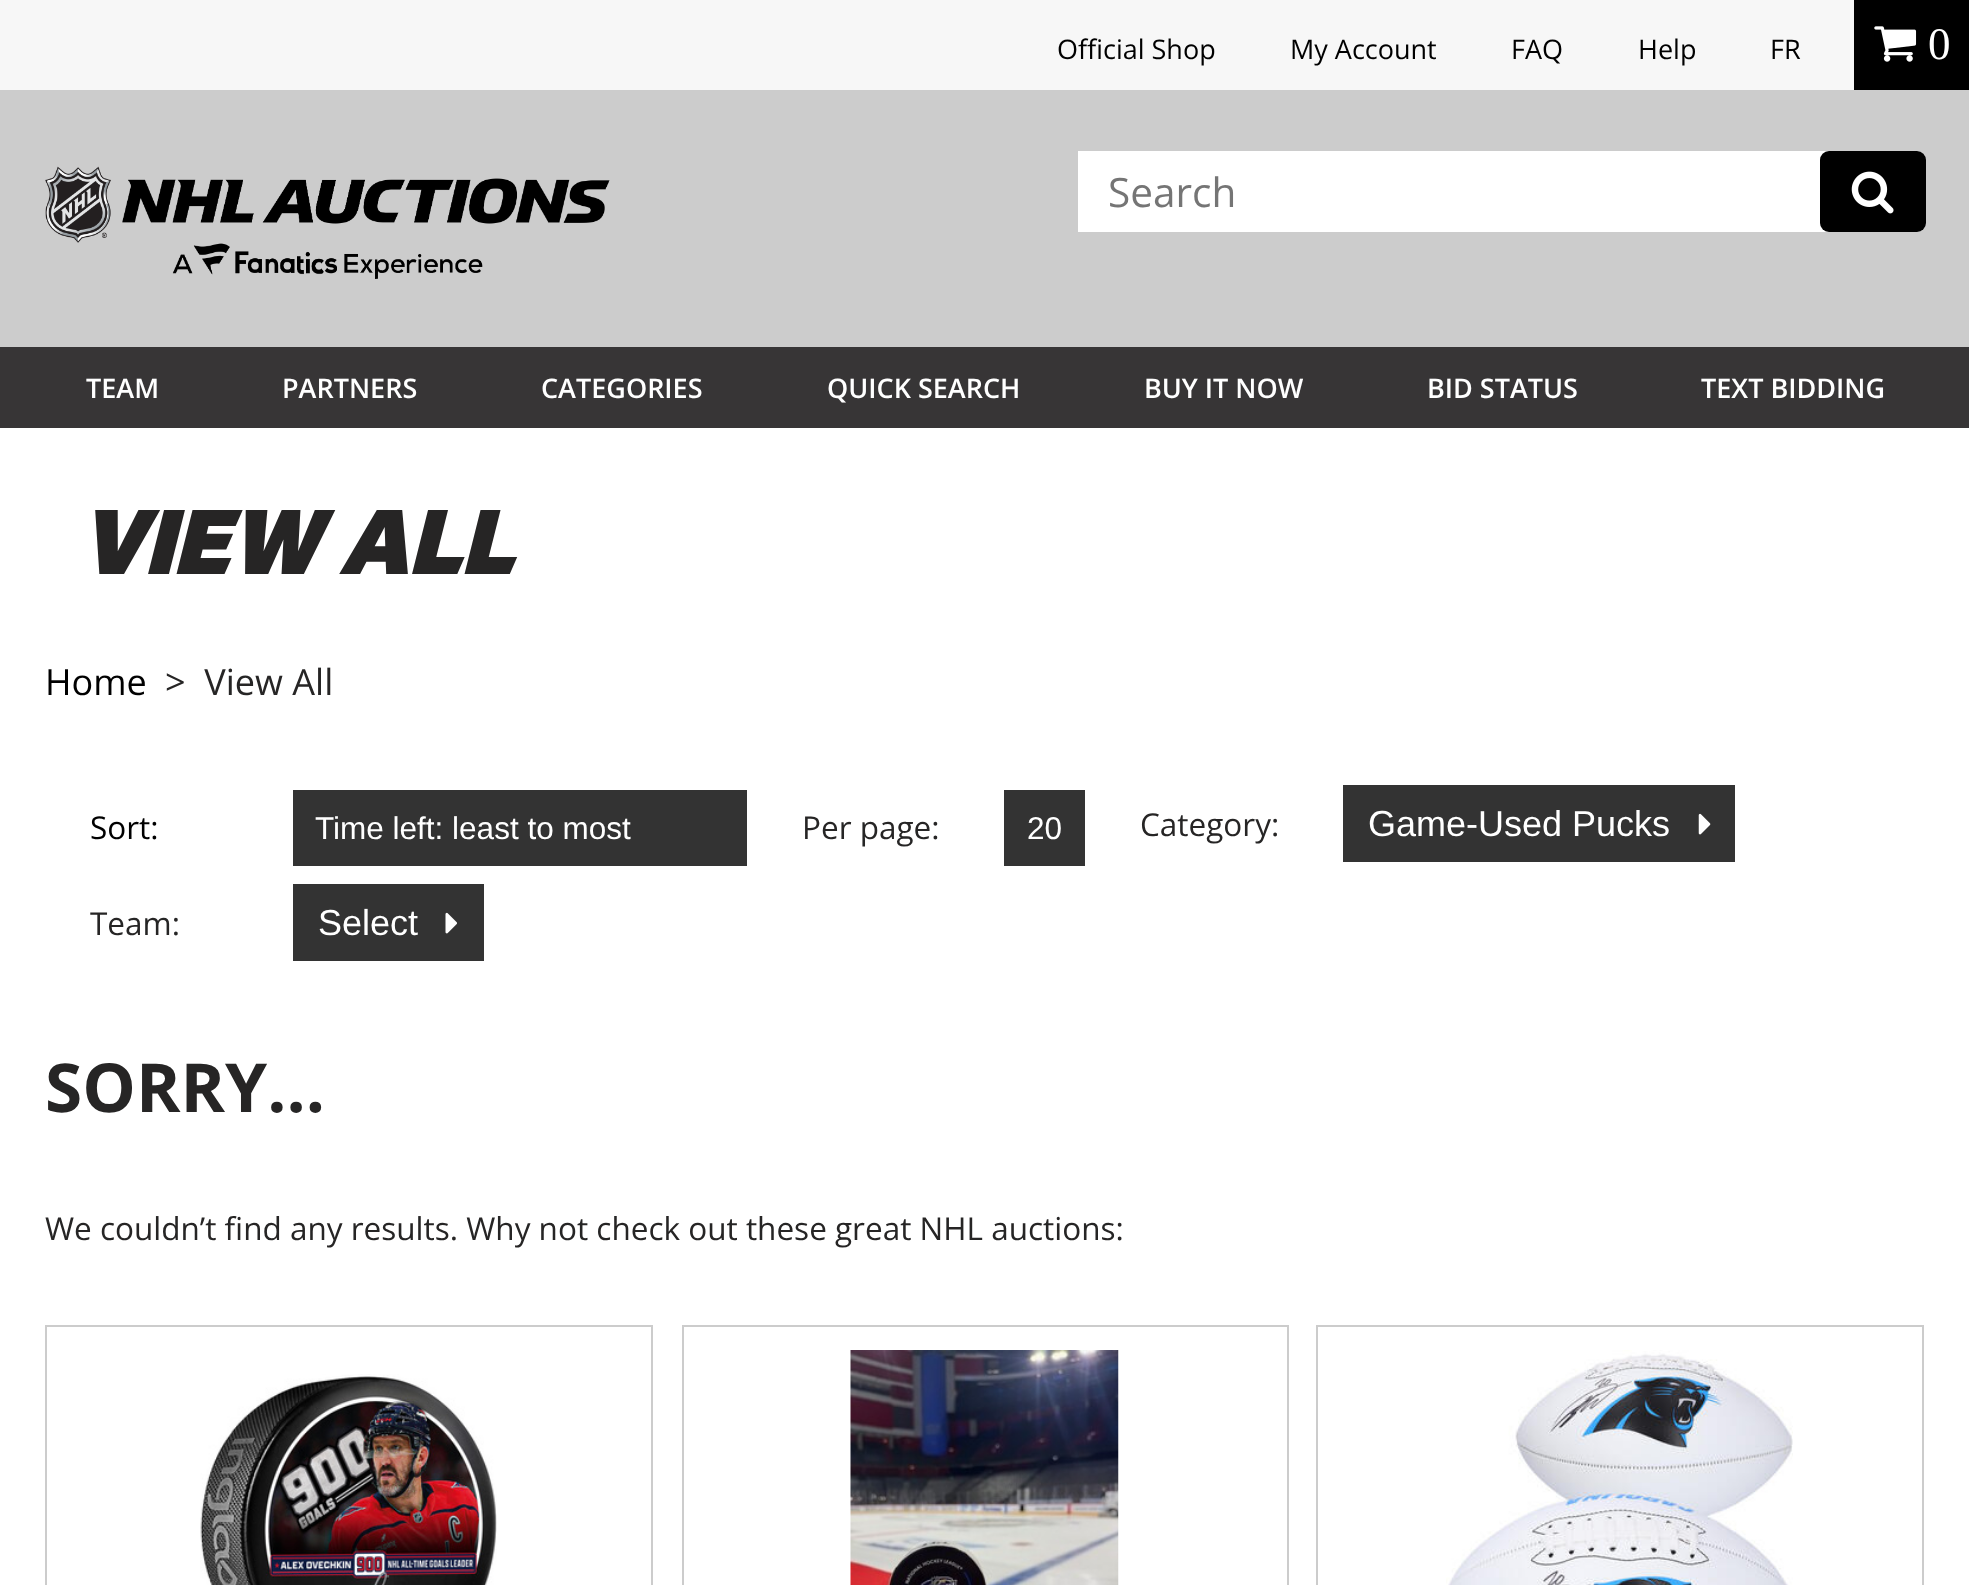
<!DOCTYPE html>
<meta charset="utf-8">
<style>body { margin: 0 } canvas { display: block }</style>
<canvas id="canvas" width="1969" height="1585"></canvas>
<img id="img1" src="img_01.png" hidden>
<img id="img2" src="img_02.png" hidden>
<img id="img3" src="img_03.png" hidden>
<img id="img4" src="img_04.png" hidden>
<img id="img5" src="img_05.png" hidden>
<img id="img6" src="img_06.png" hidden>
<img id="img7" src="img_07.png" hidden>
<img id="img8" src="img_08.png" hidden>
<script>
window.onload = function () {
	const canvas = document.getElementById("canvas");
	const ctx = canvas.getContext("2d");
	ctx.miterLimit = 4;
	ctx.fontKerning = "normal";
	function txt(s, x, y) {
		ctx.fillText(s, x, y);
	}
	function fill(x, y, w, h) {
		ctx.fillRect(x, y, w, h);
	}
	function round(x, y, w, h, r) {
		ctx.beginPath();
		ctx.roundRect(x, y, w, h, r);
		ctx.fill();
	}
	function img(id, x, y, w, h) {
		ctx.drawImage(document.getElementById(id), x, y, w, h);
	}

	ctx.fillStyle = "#FFFFFF";
	fill(0, 0, 1969, 1585);
	ctx.fillStyle = "#F7F7F7";
	fill(0, 0, 1854, 90);
	ctx.fillStyle = "#000000";
	fill(1854, 0, 115, 90);
	img("img1", 1874, 26, 43, 36);
	ctx.fillStyle = "#CCCCCC";
	fill(0, 90, 1969, 257);
	img("img2", 45, 166, 565, 113);
	ctx.fillStyle = "#FFFFFF";
	ctx.beginPath();
	ctx.roundRect(1078, 151, 848, 81, [0, 9, 9, 0]);
	ctx.fill();
	ctx.fillStyle = "#000000";
	round(1820, 151, 106, 81, 9);
	img("img3", 1851, 171, 43, 43);
	ctx.fillStyle = "#373536";
	fill(0, 347, 1969, 81);
	ctx.fillStyle = "#333333";
	fill(293, 790, 454, 76);
	fill(1004, 790, 81, 76);
	fill(1343, 785, 392, 77);
	img("img4", 1698, 813, 13, 22);
	fill(293, 884, 191, 77);
	img("img5", 445, 912, 12, 22);
	ctx.strokeStyle = "#CCCCCC";
	ctx.lineWidth = 2;
	ctx.strokeRect(46, 1326, 606, 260);
	img("img6", 200, 1374, 297, 211);
	ctx.strokeRect(683, 1326, 605, 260);
	img("img7", 850, 1350, 269, 235);
	ctx.strokeRect(1317, 1326, 606, 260);
	img("img8", 1446, 1350, 347, 235);
	ctx.font = "27px Open Sans";
	ctx.fillStyle = "#000000";
	txt("Official Shop", 1057, 59);
	txt("My Account", 1290, 59);
	txt("FAQ", 1511, 59);
	txt("Help", 1638, 59);
	txt("FR", 1770, 59);
	ctx.font = "45px Liberation Serif";
	ctx.fillStyle = "#FFFFFF";
	txt("0", 1928, 59);
	ctx.font = "40.5px Open Sans";
	ctx.fillStyle = "#757575";
	txt("Search", 1108, 207);
	ctx.font = "600 27px Open Sans";
	ctx.fillStyle = "#FFFFFF";
	txt("TEAM", 86, 398);
	txt("PARTNERS", 282, 398);
	txt("CATEGORIES", 541, 398);
	txt("QUICK SEARCH", 827, 398);
	txt("BUY IT NOW", 1144, 398);
	txt("BID STATUS", 1427, 398);
	txt("TEXT BIDDING", 1701, 398);
	ctx.font = "italic 900 90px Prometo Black";
	ctx.fillStyle = "#262525";
	txt("VIEW ALL", 79, 574);
	ctx.font = "36px Open Sans";
	ctx.fillStyle = "#000000";
	txt("Home", 45, 695);
	ctx.fillStyle = "#262525";
	txt(">  View All", 165, 695);
	ctx.font = "31.5px Open Sans";
	ctx.fillStyle = "#000000";
	txt("Sort:", 90, 839);
	ctx.font = "31.5px Liberation Sans";
	ctx.fillStyle = "#FFFFFF";
	txt("Time left: least to most", 315, 839);
	ctx.font = "31.5px Open Sans";
	ctx.fillStyle = "#262525";
	txt("Per page:", 802, 839);
	ctx.font = "31.5px Liberation Sans";
	ctx.fillStyle = "#FFFFFF";
	txt("20", 1027, 839);
	ctx.font = "31.5px Open Sans";
	ctx.fillStyle = "#262525";
	txt("Category:", 1140, 836);
	ctx.font = "36px Liberation Sans";
	ctx.fillStyle = "#FFFFFF";
	txt("Game-Used Pucks", 1368, 836);
	ctx.font = "31.5px Open Sans";
	ctx.fillStyle = "#262525";
	txt("Team:", 90, 935);
	ctx.font = "36px Liberation Sans";
	ctx.fillStyle = "#FFFFFF";
	txt("Select", 318, 935);
	ctx.font = "bold 67.5px Open Sans";
	ctx.fillStyle = "#262525";
	txt("SORRY...", 45, 1112);
	ctx.font = "31.5px Open Sans";
	txt("We couldn’t find any results. Why not check out these great NHL auctions:", 45, 1240);
};
</script>
